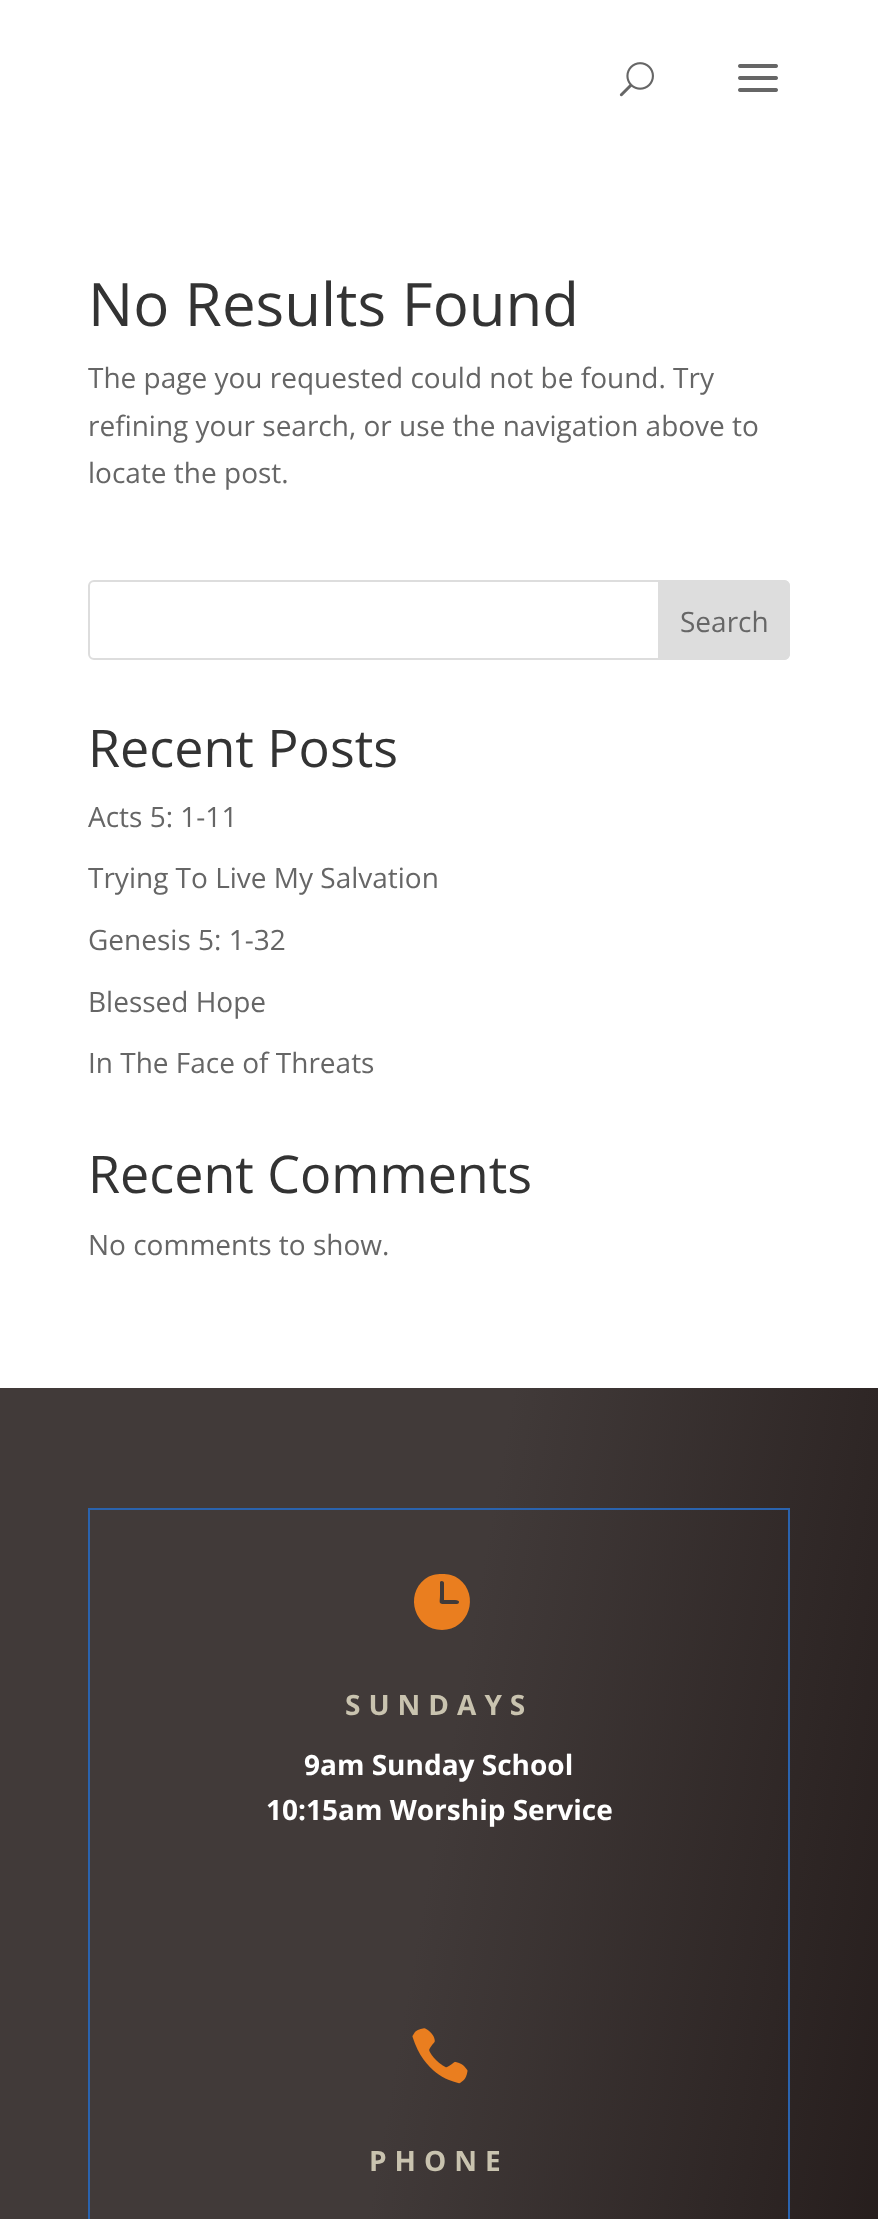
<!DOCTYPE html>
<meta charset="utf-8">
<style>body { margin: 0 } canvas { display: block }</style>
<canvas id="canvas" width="878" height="2219"></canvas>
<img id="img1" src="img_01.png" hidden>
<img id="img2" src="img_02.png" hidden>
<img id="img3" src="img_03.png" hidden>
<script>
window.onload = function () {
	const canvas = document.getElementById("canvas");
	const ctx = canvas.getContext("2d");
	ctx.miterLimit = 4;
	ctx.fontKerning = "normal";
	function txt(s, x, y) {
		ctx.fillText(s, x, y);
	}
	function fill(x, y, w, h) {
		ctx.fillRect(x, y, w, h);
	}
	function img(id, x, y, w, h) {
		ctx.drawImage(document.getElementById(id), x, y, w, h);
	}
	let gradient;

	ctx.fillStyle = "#FFFFFF";
	fill(0, 0, 878, 2219);
	img("img1", 619, 62, 35, 35);
	img("img2", 738, 64, 40, 28);
	ctx.beginPath();
	ctx.roundRect(89, 581, 700, 78, 5);
	ctx.strokeStyle = "#DDDDDD";
	ctx.lineWidth = 2;
	ctx.stroke();
	ctx.fillStyle = "#DDDDDD";
	ctx.beginPath();
	ctx.roundRect(659, 581, 130, 78, [0, 5, 5, 0]);
	ctx.fill();
	ctx.stroke();
	gradient = ctx.createLinearGradient(-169, 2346, 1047, 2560);
	gradient.addColorStop(0.41, "#413A39");
	gradient.addColorStop(1, "#1B1211");
	ctx.fillStyle = gradient;
	fill(0, 1388, 878, 831);
	ctx.strokeStyle = "#2A63AE";
	ctx.strokeRect(89, 1509, 700, 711);
	ctx.fillStyle = "#EA7E1F";
	ctx.beginPath();
	ctx.moveTo(442, 1574);
	ctx.bezierCurveTo(436, 1574, 430, 1575, 425, 1579);
	ctx.bezierCurveTo(404, 1595, 415, 1630, 442, 1630);
	ctx.bezierCurveTo(469, 1630, 480, 1595, 459, 1579);
	ctx.bezierCurveTo(454, 1575, 448, 1574, 442, 1574);
	ctx.closePath();
	ctx.moveTo(457, 1604);
	ctx.lineTo(444, 1604);
	ctx.bezierCurveTo(438, 1604, 440, 1602, 440, 1595);
	ctx.lineTo(440, 1582);
	ctx.bezierCurveTo(441, 1580, 444, 1581, 444, 1583);
	ctx.lineTo(444, 1600);
	ctx.lineTo(455, 1600);
	ctx.bezierCurveTo(461, 1600, 459, 1604, 457, 1604);
	ctx.closePath();
	ctx.fill();
	img("img3", 412, 2028, 56, 56);
	ctx.font = "60px Open Sans";
	ctx.fillStyle = "#333333";
	txt("No Results Found", 88, 326);
	ctx.font = "28px Open Sans";
	ctx.fillStyle = "#666666";
	txt("The page you requested could not be found. Try", 88, 388);
	txt("refining your search, or use the navigation above to", 88, 436);
	txt("locate the post.", 88, 483);
	txt("Search", 680, 632);
	ctx.font = "52px Open Sans";
	ctx.fillStyle = "#333333";
	txt("Recent Posts", 88, 767);
	ctx.font = "28px Open Sans";
	ctx.fillStyle = "#666666";
	txt("Acts 5: 1-11", 88, 827);
	txt("Trying To Live My Salvation", 88, 888);
	txt("Genesis 5: 1-32", 88, 950);
	txt("Blessed Hope", 88, 1012);
	txt("In The Face of Threats", 88, 1073);
	ctx.font = "52px Open Sans";
	ctx.fillStyle = "#333333";
	txt("Recent Comments", 88, 1193);
	ctx.font = "28px Open Sans";
	ctx.fillStyle = "#666666";
	txt("No comments to show.", 88, 1255);
	ctx.letterSpacing = "8px";
	ctx.font = "bold 28px Open Sans";
	ctx.fillStyle = "#C9C3AF";
	txt("SUNDAYS", 345, 1715);
	ctx.letterSpacing = "0px";
	ctx.fillStyle = "#FFFFFF";
	txt("9am Sunday School", 304, 1775);
	txt("10:15am Worship Service", 266, 1820);
	ctx.letterSpacing = "8px";
	ctx.fillStyle = "#C9C3AF";
	txt("PHONE", 369, 2171);
};
</script>
